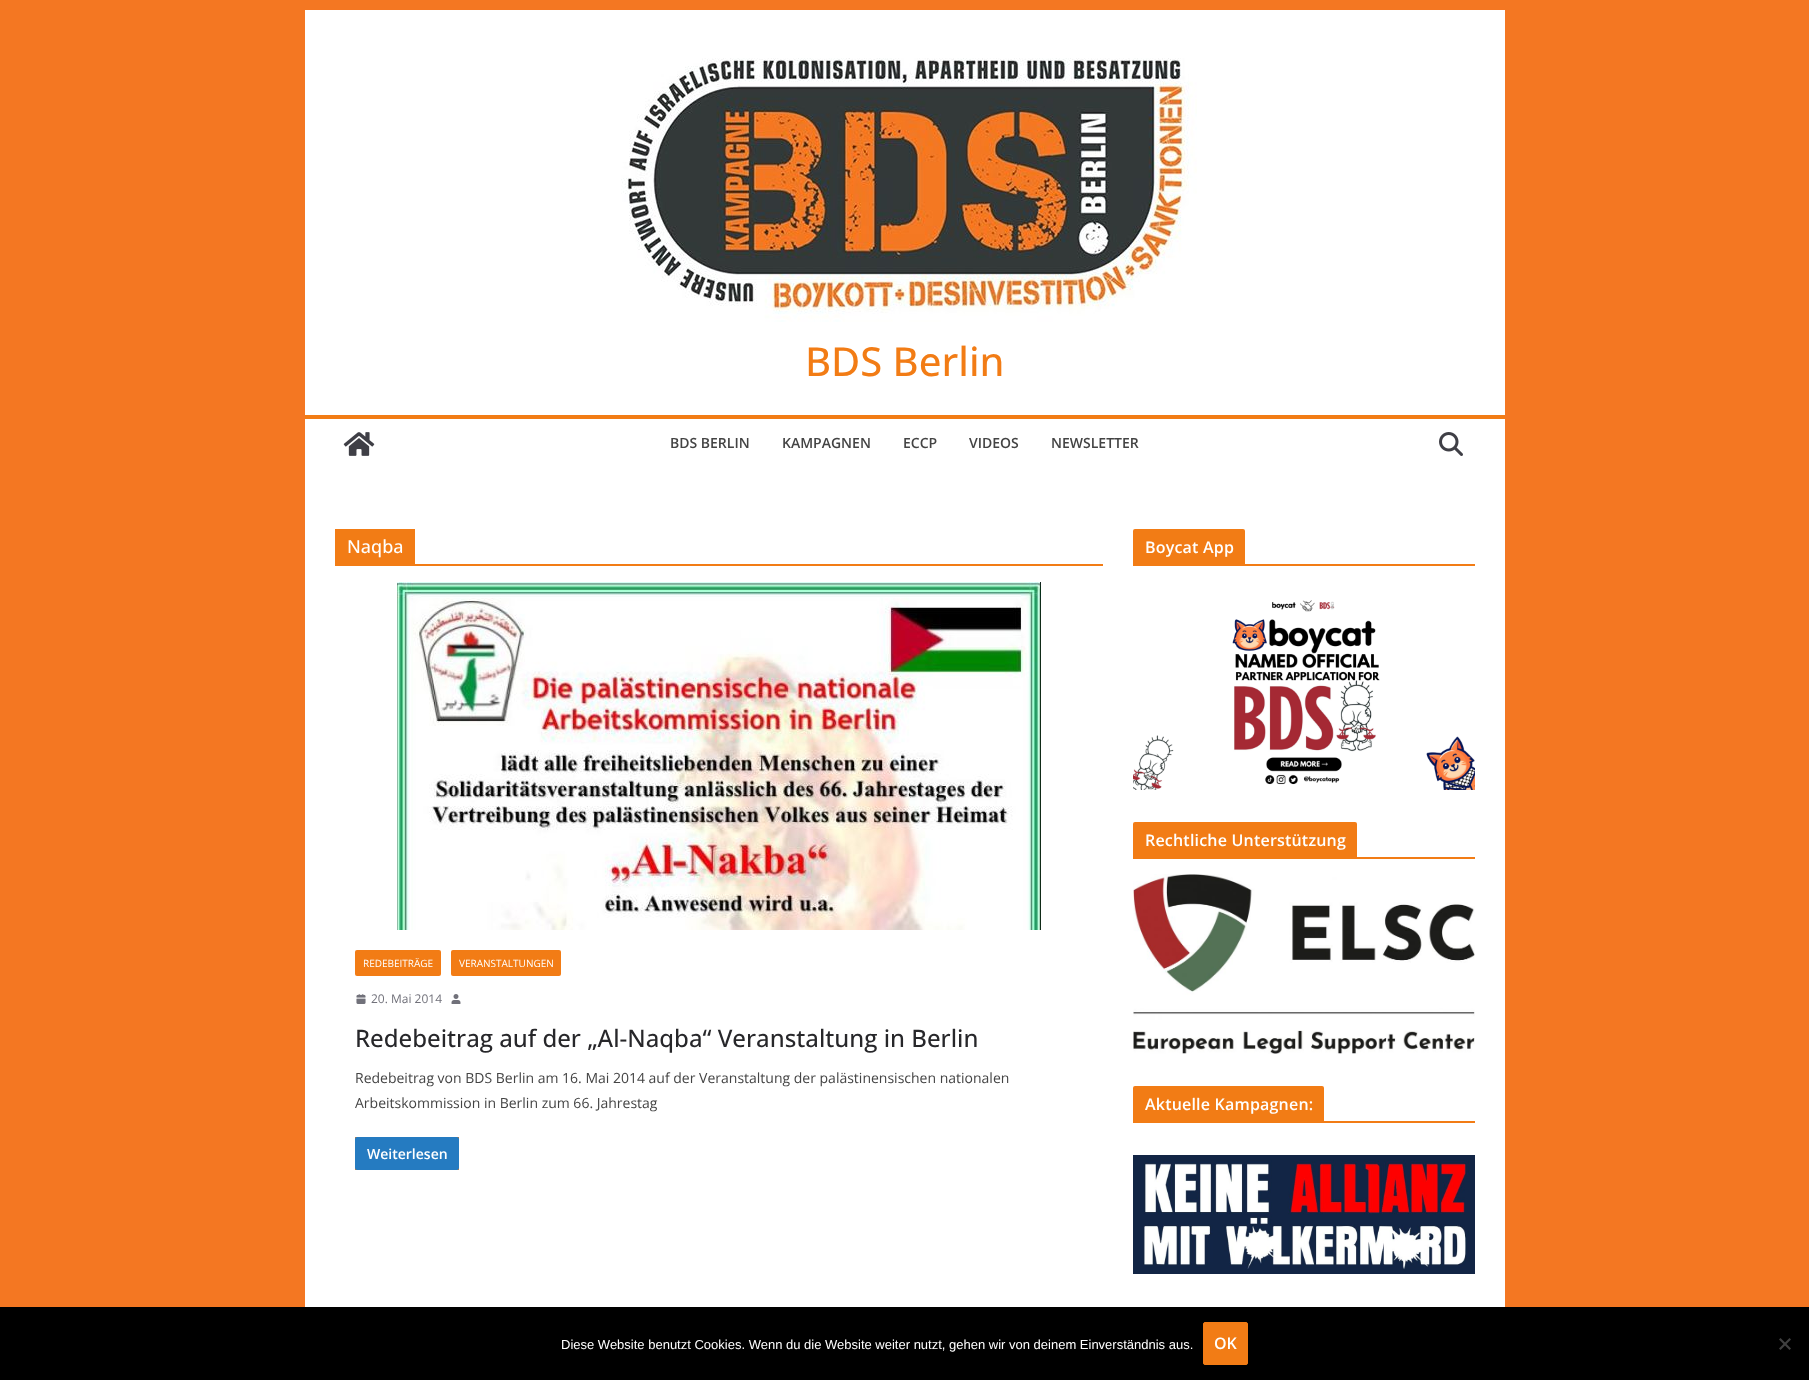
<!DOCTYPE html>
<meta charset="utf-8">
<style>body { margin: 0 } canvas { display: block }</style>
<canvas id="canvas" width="1809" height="1380"></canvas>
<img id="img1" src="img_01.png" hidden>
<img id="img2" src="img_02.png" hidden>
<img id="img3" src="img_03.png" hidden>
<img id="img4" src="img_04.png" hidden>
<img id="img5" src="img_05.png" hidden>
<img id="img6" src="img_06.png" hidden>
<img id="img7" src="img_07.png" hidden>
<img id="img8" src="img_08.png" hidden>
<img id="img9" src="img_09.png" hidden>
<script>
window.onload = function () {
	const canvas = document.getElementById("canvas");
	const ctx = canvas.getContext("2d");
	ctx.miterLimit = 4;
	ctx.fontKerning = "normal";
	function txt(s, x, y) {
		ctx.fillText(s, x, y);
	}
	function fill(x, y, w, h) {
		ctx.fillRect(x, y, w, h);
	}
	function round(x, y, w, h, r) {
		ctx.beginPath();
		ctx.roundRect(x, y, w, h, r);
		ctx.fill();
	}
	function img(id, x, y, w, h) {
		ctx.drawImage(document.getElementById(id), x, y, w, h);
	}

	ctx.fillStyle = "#F47722";
	fill(0, 0, 1809, 1380);
	ctx.fillStyle = "#FFFFFF";
	fill(305, 10, 1200, 1297);
	img("img1", 621, 58, 576, 264);
	ctx.fillStyle = "#F27C15";
	fill(305, 415, 1200, 4);
	img("img2", 343, 432, 32, 24);
	img("img3", 1439, 432, 24, 24);
	fill(335, 564, 768, 2);
	fill(335, 529, 80, 35);
	img("img4", 397, 582, 644, 348);
	round(355, 950, 86, 26, 2);
	round(451, 950, 110, 26, 2);
	img("img5", 356, 994, 10, 10);
	img("img6", 451, 994, 10, 10);
	fill(355, 1137, 104, 33);
	ctx.fillStyle = "#257BC1";
	round(355, 1137, 104, 33, 2);
	ctx.fillStyle = "#F27C15";
	fill(1133, 564, 342, 2);
	ctx.beginPath();
	ctx.roundRect(1133, 529, 112, 35, [2, 2, 0, 0]);
	ctx.fill();
	img("img7", 1133, 600, 342, 190);
	fill(1133, 857, 342, 2);
	ctx.beginPath();
	ctx.roundRect(1133, 822, 224, 35, [2, 2, 0, 0]);
	ctx.fill();
	img("img8", 1133, 874, 342, 180);
	fill(1133, 1121, 342, 2);
	ctx.beginPath();
	ctx.roundRect(1133, 1086, 191, 35, [2, 2, 0, 0]);
	ctx.fill();
	img("img9", 1133, 1155, 342, 119);
	ctx.fillStyle = "#000000";
	fill(0, 1307, 1809, 73);
	ctx.fillStyle = "#F27C15";
	ctx.beginPath();
	ctx.roundRect(1203.5, 1322.5, 44, 42, 1.5);
	ctx.fill();
	ctx.strokeStyle = "#F27C15";
	ctx.stroke();
	ctx.fillStyle = "#404040";
	ctx.beginPath();
	ctx.moveTo(1789.5, 1338);
	ctx.lineTo(1791, 1339.5);
	ctx.lineTo(1780.5, 1350);
	ctx.lineTo(1779, 1348.5);
	ctx.closePath();
	ctx.fill();
	ctx.beginPath();
	ctx.moveTo(1779, 1339.5);
	ctx.lineTo(1780.5, 1338);
	ctx.lineTo(1791, 1348.5);
	ctx.lineTo(1789.5, 1350);
	ctx.closePath();
	ctx.fill();
	ctx.font = "500 40px Open Sans";
	ctx.fillStyle = "#F27C15";
	txt("BDS Berlin", 805, 376);
	ctx.font = "600 14px Open Sans";
	ctx.fillStyle = "#444444";
	txt("BDS BERLIN", 670, 448);
	txt("KAMPAGNEN", 782, 448);
	txt("ECCP", 903, 448);
	txt("VIDEOS", 969, 448);
	txt("NEWSLETTER", 1051, 448);
	ctx.font = "500 18px Open Sans";
	ctx.fillStyle = "#FFFFFF";
	txt("Naqba", 347, 553);
	ctx.font = "10px Open Sans";
	txt("REDEBEITRÄGE", 363, 967);
	txt("VERANSTALTUNGEN", 459, 967);
	ctx.font = "12px Open Sans";
	ctx.fillStyle = "#71717A";
	txt("20. Mai 2014", 371, 1003);
	ctx.font = "500 24px Open Sans";
	ctx.fillStyle = "#27272A";
	txt("Redebeitrag auf der „Al-Naqba“ Veranstaltung in Berlin", 355, 1047);
	ctx.font = "14px Open Sans";
	ctx.fillStyle = "#444444";
	txt("Redebeitrag von BDS Berlin am 16. Mai 2014 auf der Veranstaltung der palästinensischen nationalen", 355, 1083);
	txt("Arbeitskommission in Berlin zum 66. Jahrestag", 355, 1108);
	ctx.font = "600 14px Open Sans";
	ctx.fillStyle = "#FFFFFF";
	txt("Weiterlesen", 367, 1159);
	ctx.letterSpacing = "0.2px";
	ctx.font = "600 16px Open Sans";
	txt("Boycat App", 1145, 553);
	txt("Rechtliche Unterstützung", 1145, 846);
	txt("Aktuelle Kampagnen:", 1145, 1110);
	ctx.letterSpacing = "0px";
	ctx.font = "13px Liberation Sans";
	txt("Diese Website benutzt Cookies. Wenn du die Website weiter nutzt, gehen wir von deinem Einverständnis aus.", 561, 1349);
	ctx.font = "600 16px Open Sans";
	txt("OK", 1214, 1349);
};
</script>
